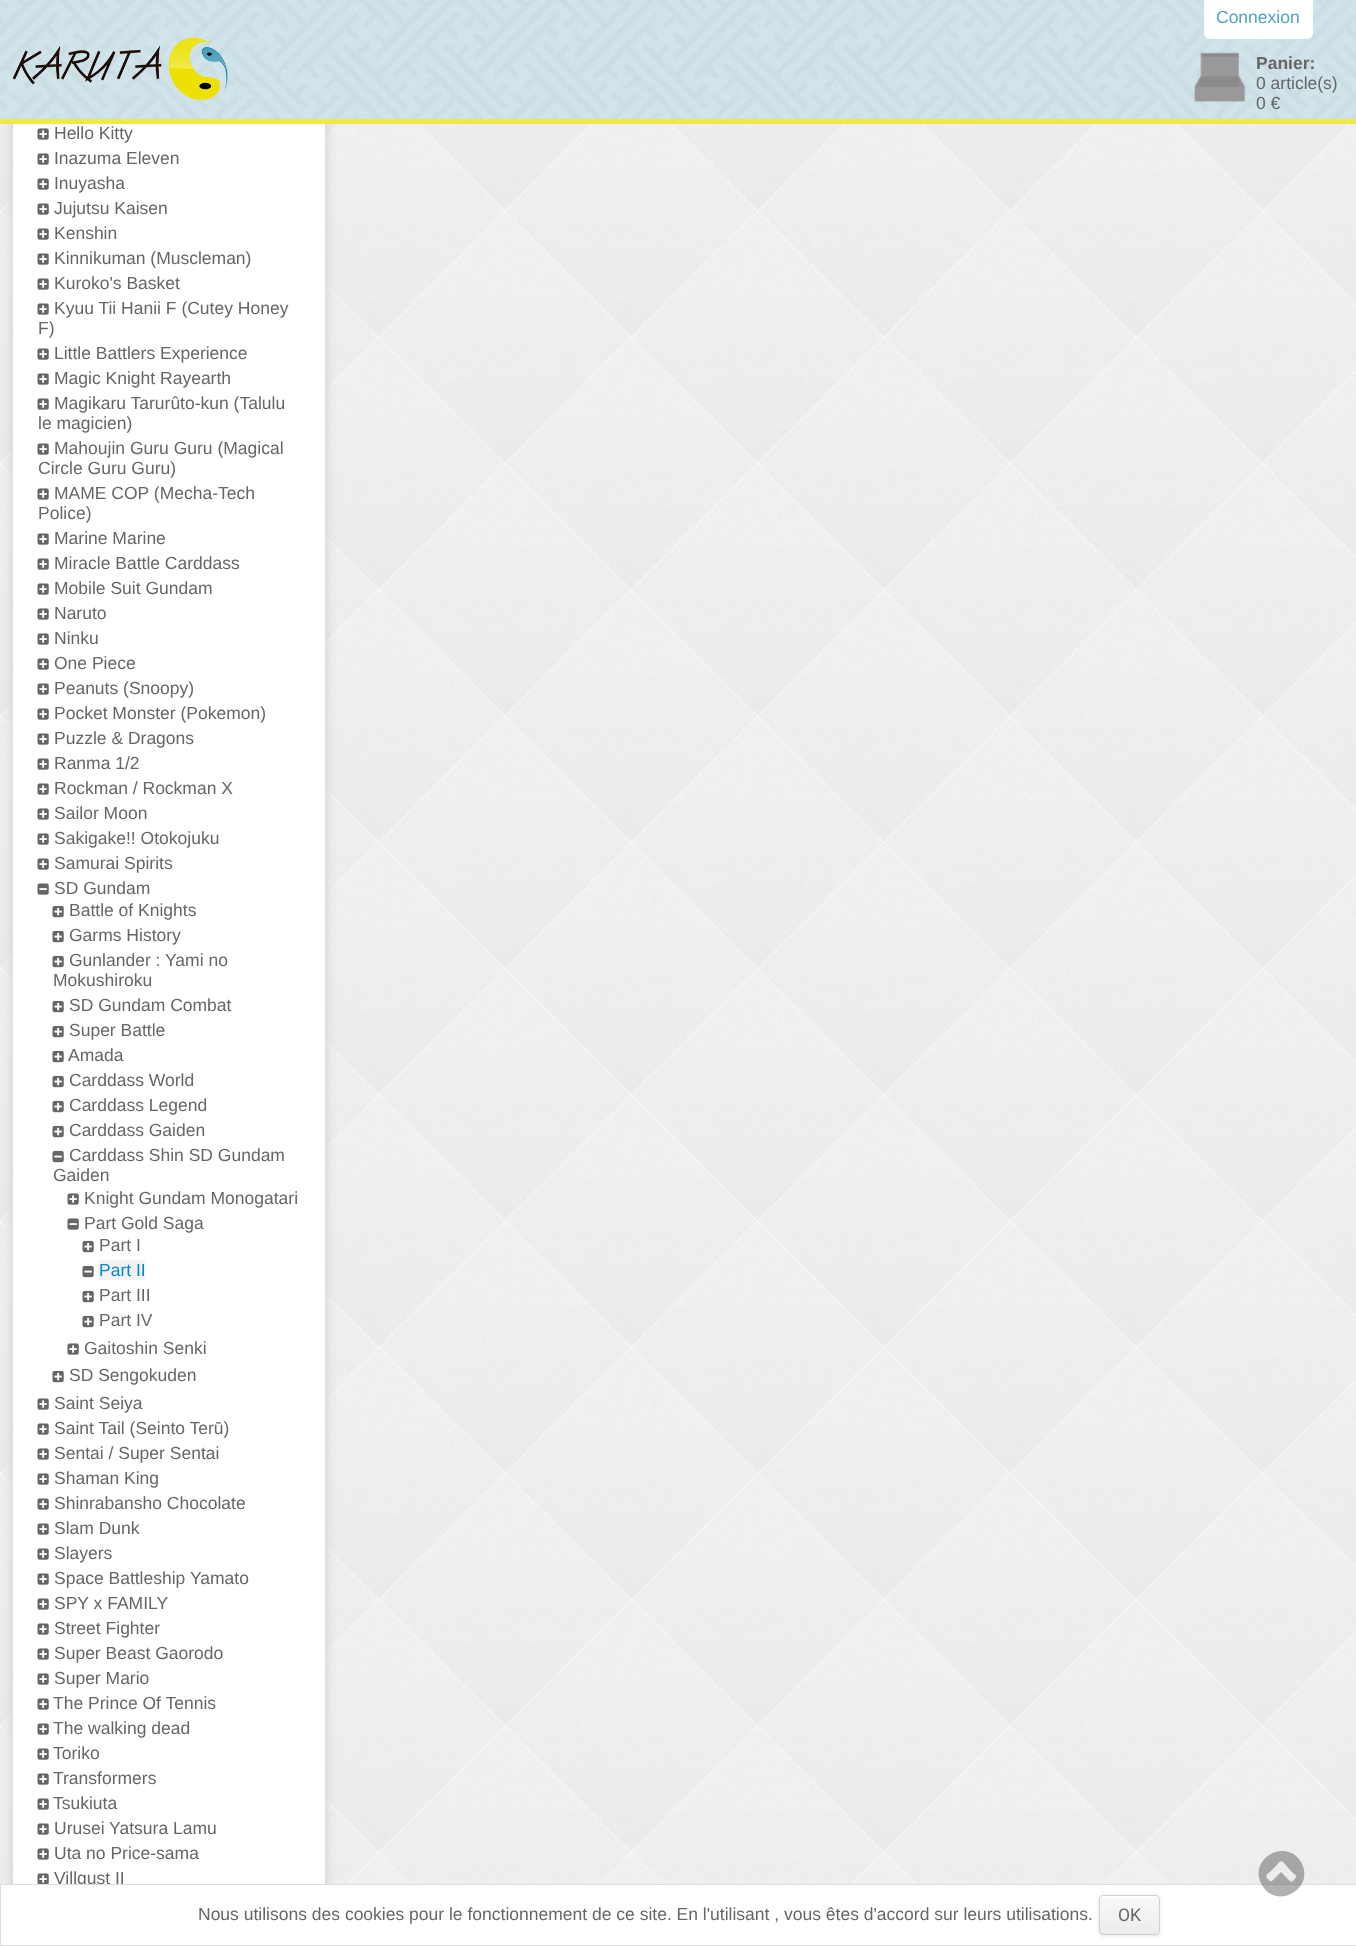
<!DOCTYPE html>
<meta charset="utf-8">
<style>body { margin: 0 } canvas { display: block }</style>
<canvas id="canvas" width="1356" height="1946"></canvas>
<img id="img1" src="img_04.png" hidden>
<img id="img2" src="img_01.png" hidden>
<img id="img3" src="img_02.png" hidden>
<img id="img4" src="img_03.png" hidden>
<img id="img5" src="img_05.png" hidden>
<img id="img6" src="img_06.png" hidden>
<img id="img7" src="img_07.png" hidden>
<img id="img8" src="img_08.png" hidden>
<img id="img9" src="img_09.png" hidden>
<script>
window.onload = function () {
	const canvas = document.getElementById("canvas");
	const ctx = canvas.getContext("2d");
	ctx.miterLimit = 4;
	ctx.fontKerning = "normal";
	function txt(s, x, y) {
		ctx.fillText(s, x, y);
	}
	function fill(x, y, w, h) {
		ctx.fillRect(x, y, w, h);
	}
	function round(x, y, w, h, r) {
		ctx.beginPath();
		ctx.roundRect(x, y, w, h, r);
		ctx.fill();
	}
	function img(id, x, y, w, h) {
		ctx.drawImage(document.getElementById(id), x, y, w, h);
	}
	let gradient;

	ctx.fillStyle = "#FFFFFF";
	fill(0, 0, 1356, 1946);
	img("img1", 0, 124, 1356, 1760);
	ctx.fillStyle = "#CCCCCC";
	ctx.filter = "blur(6px)";
	ctx.beginPath();
	ctx.rect(13, -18, 312, 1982);
	ctx.fill();
	ctx.filter = "none";
	img("img2", 0, 0, 1356, 119);
	ctx.fillStyle = "#F1E843";
	fill(0, 119, 1356, 5);
	ctx.fillStyle = "#FFFFFF";
	round(1204, -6, 109, 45, 6);
	img("img3", 12, 37, 216, 63);
	img("img4", 1194, 52, 52, 50);
	fill(13, 124, 312, 1760);
	img("img5", 37, 128, 12, 12);
	img("img5", 37, 153, 12, 12);
	img("img5", 37, 178, 12, 12);
	img("img5", 37, 203, 12, 12);
	img("img5", 37, 228, 12, 12);
	img("img5", 37, 253, 12, 12);
	img("img5", 37, 278, 12, 12);
	img("img5", 37, 303, 12, 12);
	img("img5", 37, 348, 12, 12);
	img("img5", 37, 373, 12, 12);
	img("img5", 37, 398, 12, 12);
	img("img5", 37, 443, 12, 12);
	img("img5", 37, 488, 12, 12);
	img("img5", 37, 533, 12, 12);
	img("img5", 37, 558, 12, 12);
	img("img5", 37, 583, 12, 12);
	img("img5", 37, 608, 12, 12);
	img("img5", 37, 633, 12, 12);
	img("img5", 37, 658, 12, 12);
	img("img5", 37, 683, 12, 12);
	img("img5", 37, 708, 12, 12);
	img("img5", 37, 733, 12, 12);
	img("img5", 37, 758, 12, 12);
	img("img5", 37, 783, 12, 12);
	img("img5", 37, 808, 12, 12);
	img("img5", 37, 833, 12, 12);
	img("img5", 37, 858, 12, 12);
	img("img6", 37, 883, 12, 12);
	img("img7", 52, 905, 12, 13);
	img("img7", 52, 930, 12, 13);
	img("img7", 52, 955, 12, 13);
	img("img7", 52, 1000, 12, 13);
	img("img7", 52, 1025, 12, 13);
	img("img7", 52, 1050, 12, 13);
	img("img7", 52, 1075, 12, 13);
	img("img7", 52, 1100, 12, 13);
	img("img7", 52, 1125, 12, 13);
	img("img8", 52, 1150, 12, 13);
	img("img5", 67, 1193, 12, 12);
	img("img6", 67, 1218, 12, 12);
	img("img7", 82, 1240, 12, 13);
	img("img8", 82, 1265, 12, 13);
	ctx.fillStyle = "#F3F3F3";
	fill(99, 1260, 46, 20);
	img("img7", 82, 1290, 12, 13);
	img("img7", 82, 1315, 12, 13);
	img("img5", 67, 1343, 12, 12);
	img("img7", 52, 1370, 12, 13);
	img("img5", 37, 1398, 12, 12);
	img("img5", 37, 1423, 12, 12);
	img("img5", 37, 1448, 12, 12);
	img("img5", 37, 1473, 12, 12);
	img("img5", 37, 1498, 12, 12);
	img("img5", 37, 1523, 12, 12);
	img("img5", 37, 1548, 12, 12);
	img("img5", 37, 1573, 12, 12);
	img("img5", 37, 1598, 12, 12);
	img("img5", 37, 1623, 12, 12);
	img("img5", 37, 1648, 12, 12);
	img("img5", 37, 1673, 12, 12);
	img("img5", 37, 1698, 12, 12);
	img("img5", 37, 1723, 12, 12);
	img("img5", 37, 1748, 12, 12);
	img("img5", 37, 1773, 12, 12);
	img("img5", 37, 1798, 12, 12);
	img("img5", 37, 1823, 12, 12);
	img("img5", 37, 1848, 12, 12);
	img("img9", 37, 1873, 12, 11);
	ctx.font = "17.5px Liberation Sans";
	ctx.fillStyle = "#52A3C0";
	txt("Connexion", 1216, 23);
	ctx.font = "bold 17.5px Liberation Sans";
	ctx.fillStyle = "#666666";
	txt("Panier:", 1256, 69);
	ctx.font = "17.5px Liberation Sans";
	txt("0 article(s)", 1256, 89);
	txt("0 €", 1256, 109);
	txt("Hello Kitty", 54, 139);
	txt("Inazuma Eleven", 54, 164);
	txt("Inuyasha", 54, 189);
	txt("Jujutsu Kaisen", 54, 214);
	txt("Kenshin", 54, 239);
	txt("Kinnikuman (Muscleman)", 54, 264);
	txt("Kuroko's Basket", 54, 289);
	txt("Kyuu Tii Hanii F (Cutey Honey", 54, 314);
	txt("F)", 38, 334);
	txt("Little Battlers Experience", 54, 359);
	txt("Magic Knight Rayearth", 54, 384);
	txt("Magikaru Tarurûto-kun (Talulu", 54, 409);
	txt("le magicien)", 38, 429);
	txt("Mahoujin Guru Guru (Magical", 54, 454);
	txt("Circle Guru Guru)", 38, 474);
	txt("MAME COP (Mecha-Tech", 54, 499);
	txt("Police)", 38, 519);
	txt("Marine Marine", 54, 544);
	txt("Miracle Battle Carddass", 54, 569);
	txt("Mobile Suit Gundam", 54, 594);
	txt("Naruto", 54, 619);
	txt("Ninku", 54, 644);
	txt("One Piece", 54, 669);
	txt("Peanuts (Snoopy)", 54, 694);
	txt("Pocket Monster (Pokemon)", 54, 719);
	txt("Puzzle & Dragons", 54, 744);
	txt("Ranma 1/2", 54, 769);
	txt("Rockman / Rockman X", 54, 794);
	txt("Sailor Moon", 54, 819);
	txt("Sakigake!! Otokojuku", 54, 844);
	txt("Samurai Spirits", 54, 869);
	txt("SD Gundam", 54, 894);
	txt("Battle of Knights", 69, 916);
	txt("Garms History", 69, 941);
	txt("Gunlander : Yami no", 69, 966);
	txt("Mokushiroku", 53, 986);
	txt("SD Gundam Combat", 69, 1011);
	txt("Super Battle", 69, 1036);
	txt("Amada", 68, 1061);
	txt("Carddass World", 69, 1086);
	txt("Carddass Legend", 69, 1111);
	txt("Carddass Gaiden", 69, 1136);
	txt("Carddass Shin SD Gundam", 69, 1161);
	txt("Gaiden", 53, 1181);
	txt("Knight Gundam Monogatari", 84, 1204);
	txt("Part Gold Saga", 84, 1229);
	txt("Part I", 99, 1251);
	ctx.fillStyle = "#0088CC";
	txt("Part II", 99, 1276);
	ctx.fillStyle = "#666666";
	txt("Part III", 99, 1301);
	txt("Part IV", 99, 1326);
	txt("Gaitoshin Senki", 84, 1354);
	txt("SD Sengokuden", 69, 1381);
	txt("Saint Seiya", 54, 1409);
	txt("Saint Tail (Seinto Terū)", 54, 1434);
	txt("Sentai / Super Sentai", 54, 1459);
	txt("Shaman King", 54, 1484);
	txt("Shinrabansho Chocolate", 54, 1509);
	txt("Slam Dunk", 54, 1534);
	txt("Slayers", 54, 1559);
	txt("Space Battleship Yamato", 54, 1584);
	txt("SPY x FAMILY", 54, 1609);
	txt("Street Fighter", 54, 1634);
	txt("Super Beast Gaorodo", 54, 1659);
	txt("Super Mario", 54, 1684);
	txt("The Prince Of Tennis", 53, 1709);
	txt("The walking dead", 53, 1734);
	txt("Toriko", 53, 1759);
	txt("Transformers", 53, 1784);
	txt("Tsukiuta", 53, 1809);
	txt("Urusei Yatsura Lamu", 54, 1834);
	txt("Uta no Price-sama", 54, 1859);
	txt("Villgust II", 54, 1884);
	ctx.fillStyle = "#FFFFFF";
	fill(3, 1885, 332, 60);
	ctx.strokeStyle = "#DDDDDD";
	ctx.strokeRect(0.5, 1884.5, 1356, 61);
	ctx.fillStyle = "#666666";
	txt("Nous utilisons des cookies pour le fonctionnement de ce site. En l'utilisant , vous êtes d'accord sur leurs utilisations.", 198, 1920);
	ctx.fillStyle = "rgba(0, 0, 0, 0.1)";
	ctx.filter = "blur(2px)";
	ctx.beginPath();
	ctx.roundRect(1099, 1896, 61, 40, 4);
	ctx.fill();
	ctx.filter = "none";
	ctx.save();
	ctx.beginPath();
	ctx.roundRect(1099, 1895, 61, 40, 4);
	ctx.clip();
	gradient = ctx.createLinearGradient(1129, 1896, 1129, 1934);
	gradient.addColorStop(0, "#F9F9F9");
	gradient.addColorStop(1, "#ECECEC");
	ctx.fillStyle = gradient;
	fill(1099, 1896, 61, 38);
	ctx.restore();
	ctx.fillStyle = "#FEFEFE";
	ctx.beginPath();
	ctx.moveTo(1102, 1898);
	ctx.lineTo(1156, 1898);
	ctx.bezierCurveTo(1158, 1898, 1159, 1899, 1159, 1900);
	ctx.bezierCurveTo(1159, 1894, 1153, 1896, 1148, 1896);
	ctx.lineTo(1112, 1896);
	ctx.bezierCurveTo(1106, 1896, 1100, 1894, 1100, 1900);
	ctx.bezierCurveTo(1100, 1899, 1101, 1898, 1102, 1898);
	ctx.closePath();
	ctx.fill();
	ctx.beginPath();
	ctx.roundRect(1099.5, 1895.5, 60, 39, 3.5);
	ctx.strokeStyle = "#D1D1D1";
	ctx.stroke();
	ctx.font = "17.5px Roboto";
	ctx.fillStyle = "#666666";
	txt("OK", 1118, 1921);
	ctx.fillStyle = "rgba(0, 0, 0, 0.3)";
	ctx.beginPath();
	ctx.moveTo(1293, 1881);
	ctx.bezierCurveTo(1298, 1875, 1297, 1877, 1291, 1871);
	ctx.bezierCurveTo(1279, 1858, 1284, 1858, 1271, 1871);
	ctx.bezierCurveTo(1268, 1874, 1264, 1875, 1268, 1879);
	ctx.bezierCurveTo(1271, 1882, 1271, 1882, 1274, 1879);
	ctx.lineTo(1281, 1872);
	ctx.lineTo(1287, 1878);
	ctx.bezierCurveTo(1288, 1879, 1291, 1883, 1293, 1881);
	ctx.closePath();
	ctx.moveTo(1301, 1862);
	ctx.bezierCurveTo(1316, 1888, 1277, 1911, 1262, 1885);
	ctx.bezierCurveTo(1247, 1859, 1286, 1837, 1301, 1862);
	ctx.closePath();
	ctx.fill();
};
</script>
